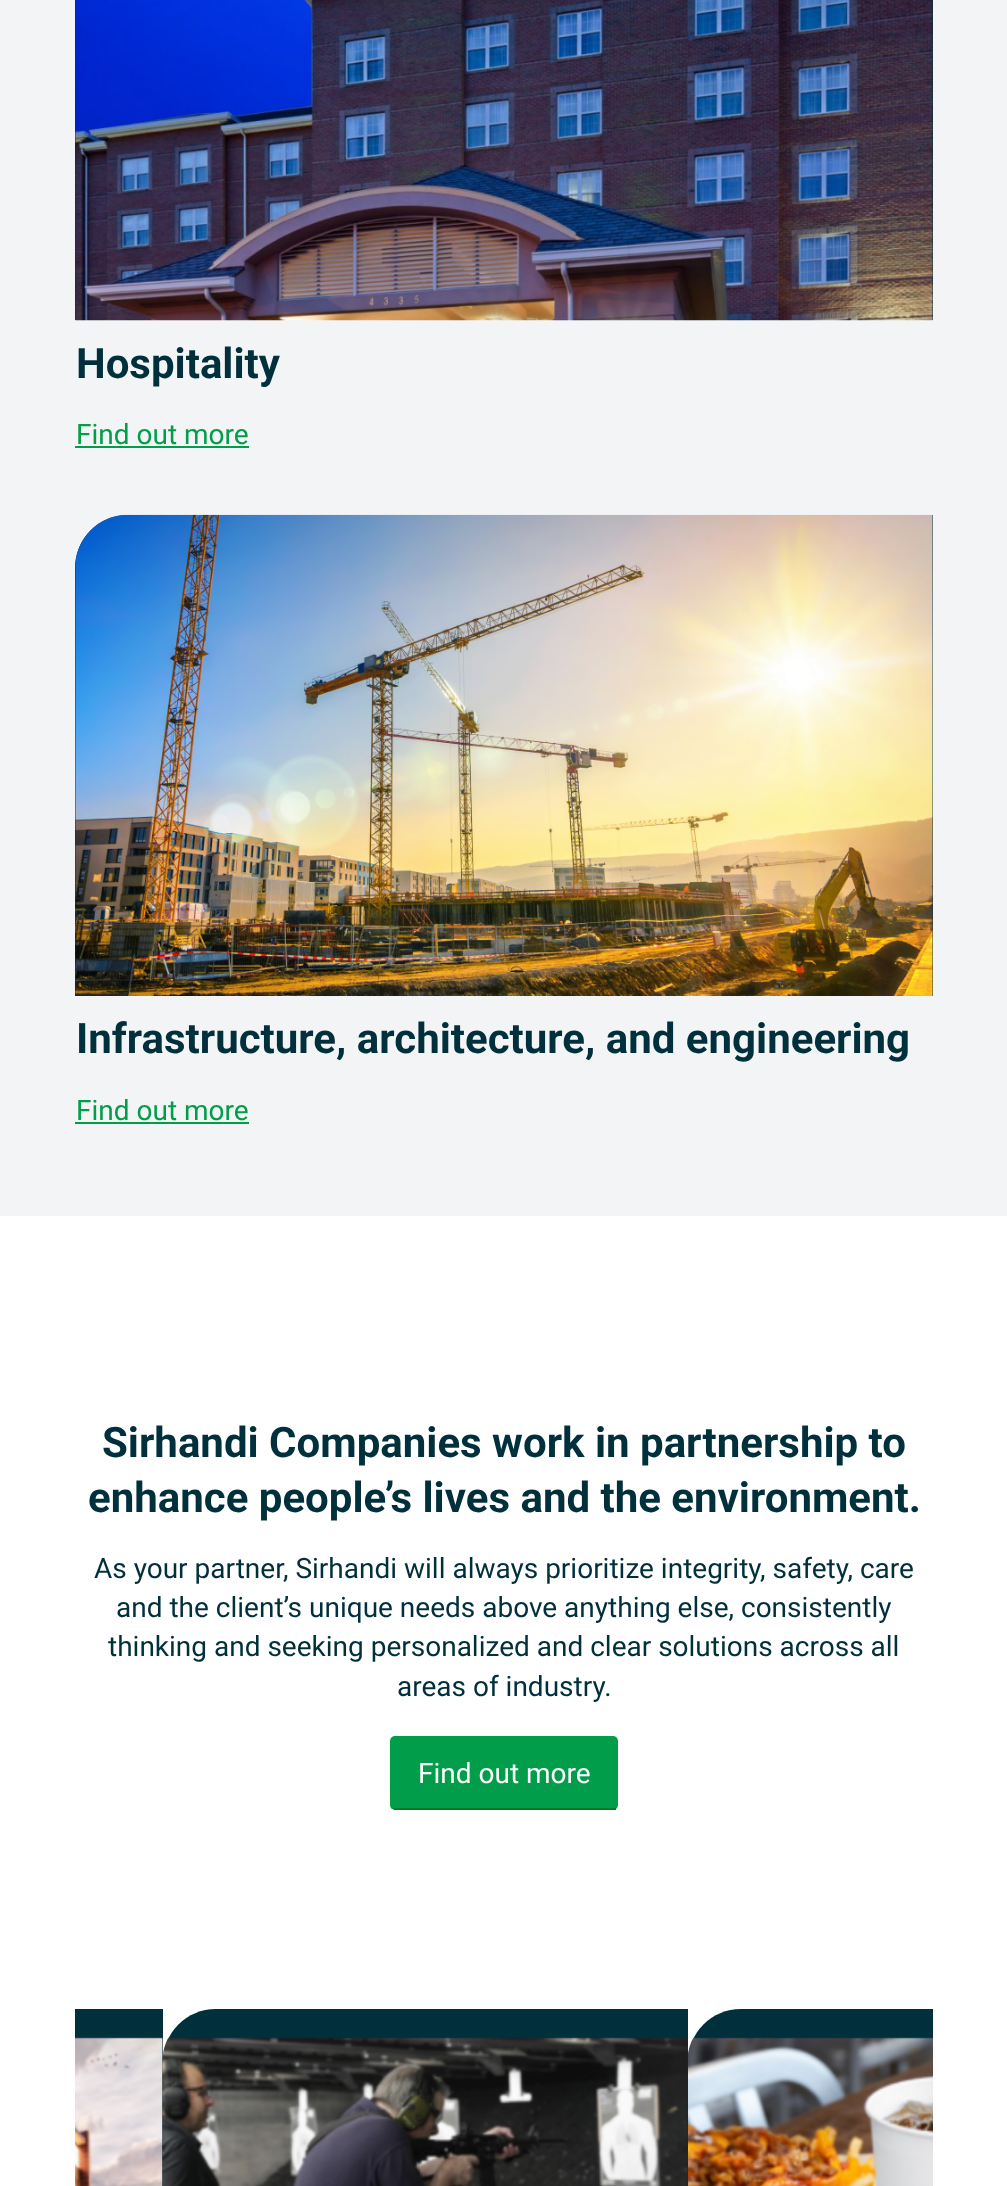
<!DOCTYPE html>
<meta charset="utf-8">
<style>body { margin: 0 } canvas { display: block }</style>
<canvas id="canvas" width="1007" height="2186"></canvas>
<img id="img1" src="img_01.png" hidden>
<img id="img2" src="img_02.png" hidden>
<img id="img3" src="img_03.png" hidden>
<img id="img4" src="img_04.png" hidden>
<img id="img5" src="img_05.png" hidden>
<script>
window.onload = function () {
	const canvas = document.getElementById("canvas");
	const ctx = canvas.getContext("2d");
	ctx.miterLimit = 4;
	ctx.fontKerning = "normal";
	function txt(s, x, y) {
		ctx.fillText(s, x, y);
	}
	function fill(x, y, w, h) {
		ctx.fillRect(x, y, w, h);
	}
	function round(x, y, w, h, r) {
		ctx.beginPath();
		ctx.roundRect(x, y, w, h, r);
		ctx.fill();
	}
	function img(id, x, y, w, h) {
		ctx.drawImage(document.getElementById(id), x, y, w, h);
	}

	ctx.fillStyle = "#F3F4F6";
	fill(0, 0, 1007, 2186);
	ctx.fillStyle = "#00303C";
	fill(75, 0, 858, 320);
	img("img1", 75, 0, 858, 321);
	ctx.fillStyle = "#019D49";
	fill(75, 446, 174, 2);
	ctx.fillStyle = "#00303C";
	ctx.beginPath();
	ctx.roundRect(75, 515, 858, 481, [53, 0, 0, 0]);
	ctx.fill();
	img("img2", 75, 514, 858, 482);
	ctx.fillStyle = "#019D49";
	fill(75, 1122, 174, 2);
	ctx.fillStyle = "#FFFFFF";
	fill(0, 1216, 1007, 970);
	ctx.fillStyle = "#019D4A";
	round(390, 1736, 228, 74, 5);
	ctx.fillStyle = "#007B28";
	fill(394, 1808, 222, 2);
	ctx.fillStyle = "#00303C";
	fill(75, 2009, 88, 177);
	img("img3", 75, 2037, 88, 149);
	ctx.beginPath();
	ctx.moveTo(216, 2009);
	ctx.lineTo(688, 2009);
	ctx.lineTo(688, 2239);
	ctx.lineTo(163, 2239);
	ctx.lineTo(163, 2062);
	ctx.bezierCurveTo(163, 2032.5, 186.5, 2009, 216, 2009);
	ctx.closePath();
	ctx.fill();
	img("img4", 162, 2037, 526, 149);
	ctx.beginPath();
	ctx.moveTo(741, 2009);
	ctx.lineTo(933, 2009);
	ctx.lineTo(933, 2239);
	ctx.lineTo(688, 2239);
	ctx.lineTo(688, 2062);
	ctx.bezierCurveTo(688, 2032.5, 711.5, 2009, 741, 2009);
	ctx.closePath();
	ctx.fill();
	img("img5", 688, 2037, 245, 149);
	ctx.font = "bold 42px Roboto";
	txt("Hospitality", 76, 378);
	ctx.font = "28px Roboto";
	ctx.fillStyle = "#019D49";
	txt("Find out more", 76, 444);
	ctx.font = "bold 42px Roboto";
	ctx.fillStyle = "#00303C";
	txt("Infrastructure, architecture, and engineering", 76, 1053);
	ctx.font = "28px Roboto";
	ctx.fillStyle = "#019D49";
	txt("Find out more", 76, 1120);
	ctx.font = "bold 42px Roboto";
	ctx.fillStyle = "#00303C";
	txt("Sirhandi Companies work in partnership to", 102, 1457);
	txt("enhance people’s lives and the environment.", 88, 1512);
	ctx.font = "28px Roboto";
	txt("As your partner, Sirhandi will always prioritize integrity, safety, care", 94, 1578);
	txt("and the client’s unique needs above anything else, consistently", 116, 1617);
	txt("thinking and seeking personalized and clear solutions across all", 108, 1656);
	txt("areas of industry.", 397, 1696);
	ctx.fillStyle = "#FFFFFF";
	txt("Find out more", 418, 1783);
};
</script>
